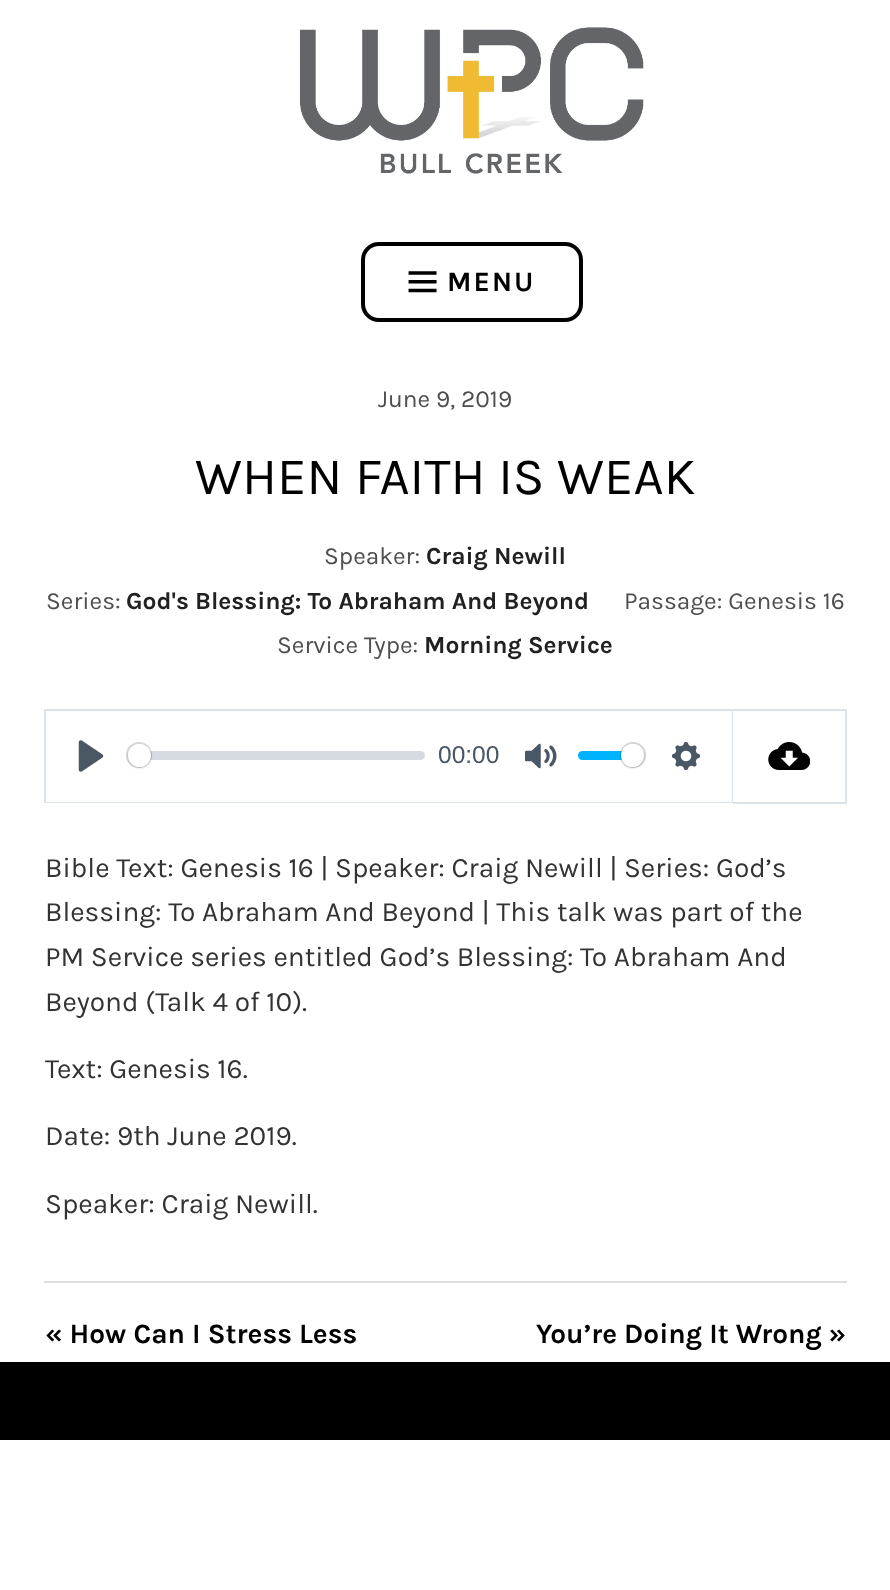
<!DOCTYPE html>
<meta charset="utf-8">
<style>body { margin: 0 } canvas { display: block }</style>
<canvas id="canvas" width="890" height="1590"></canvas>
<img id="img1" src="img_01.png" hidden>
<img id="img2" src="img_02.png" hidden>
<img id="img3" src="img_03.png" hidden>
<img id="img4" src="img_04.png" hidden>
<img id="img5" src="img_05.png" hidden>
<img id="img6" src="img_06.png" hidden>
<script>
window.onload = function () {
	const canvas = document.getElementById("canvas");
	const ctx = canvas.getContext("2d");
	ctx.miterLimit = 4;
	ctx.fontKerning = "normal";
	function txt(s, x, y) {
		ctx.fillText(s, x, y);
	}
	function fill(x, y, w, h) {
		ctx.fillRect(x, y, w, h);
	}
	function round(x, y, w, h, r) {
		ctx.beginPath();
		ctx.roundRect(x, y, w, h, r);
		ctx.fill();
	}
	function img(id, x, y, w, h) {
		ctx.drawImage(document.getElementById(id), x, y, w, h);
	}

	ctx.fillStyle = "#FFFFFF";
	fill(0, 0, 890, 1590);
	img("img1", 299, 27, 345, 147);
	ctx.beginPath();
	ctx.roundRect(363, 244, 218, 76, 16);
	ctx.strokeStyle = "#000000";
	ctx.lineWidth = 4;
	ctx.stroke();
	img("img2", 408, 271, 29, 22);
	ctx.strokeStyle = "#DBE3E8";
	ctx.lineWidth = 2;
	ctx.strokeRect(45, 710, 687, 92);
	fill(46, 711, 686, 91);
	img("img3", 78, 740, 26, 32);
	ctx.fillStyle = "rgba(193, 201, 209, 0.66)";
	round(128, 751, 297, 9, 4.5);
	ctx.beginPath();
	ctx.arc(139, 755, 12, 0, Math.PI * 2);
	ctx.strokeStyle = "rgba(35, 41, 47, 0.2)";
	ctx.stroke();
	ctx.fillStyle = "rgba(0, 0, 0, 0.15)";
	ctx.filter = "blur(1px)";
	ctx.beginPath();
	ctx.roundRect(128, 746, 23, 22, 11);
	ctx.fill();
	ctx.filter = "none";
	ctx.fillStyle = "#FFFFFF";
	ctx.beginPath();
	ctx.arc(139.5, 755.5, 11.5, 0, Math.PI * 2);
	ctx.fill();
	img("img4", 525, 743, 32, 26);
	ctx.fillStyle = "#00B3FF";
	round(578, 751, 66, 9, 4.5);
	ctx.beginPath();
	ctx.arc(633, 755, 12, 0, Math.PI * 2);
	ctx.stroke();
	ctx.fillStyle = "rgba(0, 0, 0, 0.15)";
	ctx.filter = "blur(1px)";
	ctx.beginPath();
	ctx.roundRect(621, 746, 23, 22, 11);
	ctx.fill();
	ctx.filter = "none";
	ctx.fillStyle = "#FFFFFF";
	ctx.beginPath();
	ctx.arc(632.5, 755.5, 11.5, 0, Math.PI * 2);
	ctx.fill();
	img("img5", 672, 742, 28, 28);
	ctx.fillStyle = "#DBE3E8";
	fill(733, 709, 114, 2);
	fill(845, 709, 2, 94);
	fill(733, 802, 114, 2);
	img("img6", 768, 742, 42, 28);
	ctx.fillStyle = "#DDDDDD";
	fill(44, 1281, 803, 2);
	ctx.fillStyle = "#000000";
	fill(0, 1362, 890, 78);
	ctx.letterSpacing = "2px";
	ctx.font = "bold 28px Karla";
	txt("MENU", 447, 291);
	ctx.letterSpacing = "0px";
	ctx.font = "24.5px Karla";
	ctx.fillStyle = "#4E4E4E";
	txt("June 9, 2019", 378, 407);
	ctx.font = "52.5px Karla";
	ctx.fillStyle = "#000000";
	txt("WHEN FAITH IS WEAK", 195, 494);
	ctx.font = "24.5px Karla";
	ctx.fillStyle = "#4E4E4E";
	txt("Speaker:", 324, 564);
	ctx.font = "bold 24.5px Karla";
	ctx.fillStyle = "#212121";
	txt("Craig Newill", 426, 564);
	ctx.font = "24.5px Karla";
	ctx.fillStyle = "#4E4E4E";
	txt("Series:", 46, 609);
	ctx.font = "bold 24.5px Karla";
	ctx.fillStyle = "#212121";
	txt("God's Blessing: To Abraham And Beyond", 126, 609);
	ctx.font = "24.5px Karla";
	ctx.fillStyle = "#4E4E4E";
	txt("Passage: Genesis 16", 624, 609);
	txt("Service Type:", 277, 653);
	ctx.font = "bold 24.5px Karla";
	ctx.fillStyle = "#212121";
	txt("Morning Service", 424, 653);
	ctx.font = "24.5px Liberation Sans";
	ctx.fillStyle = "#4A5764";
	txt("00:00", 438, 763);
	ctx.font = "28px Karla";
	ctx.fillStyle = "#333333";
	txt("Bible Text: Genesis 16 | Speaker: Craig Newill | Series: God’s", 45, 877);
	txt("Blessing: To Abraham And Beyond | This talk was part of the", 45, 921);
	txt("PM Service series entitled God’s Blessing: To Abraham And", 45, 966);
	txt("Beyond (Talk 4 of 10).", 45, 1011);
	txt("Text: Genesis 16.", 45, 1078);
	txt("Date: 9th June 2019.", 45, 1145);
	txt("Speaker: Craig Newill.", 45, 1213);
	ctx.font = "bold 28px Karla";
	ctx.fillStyle = "#000000";
	txt("« How Can I Stress Less", 45, 1343);
	txt("You’re Doing It Wrong »", 536, 1343);
};
</script>
